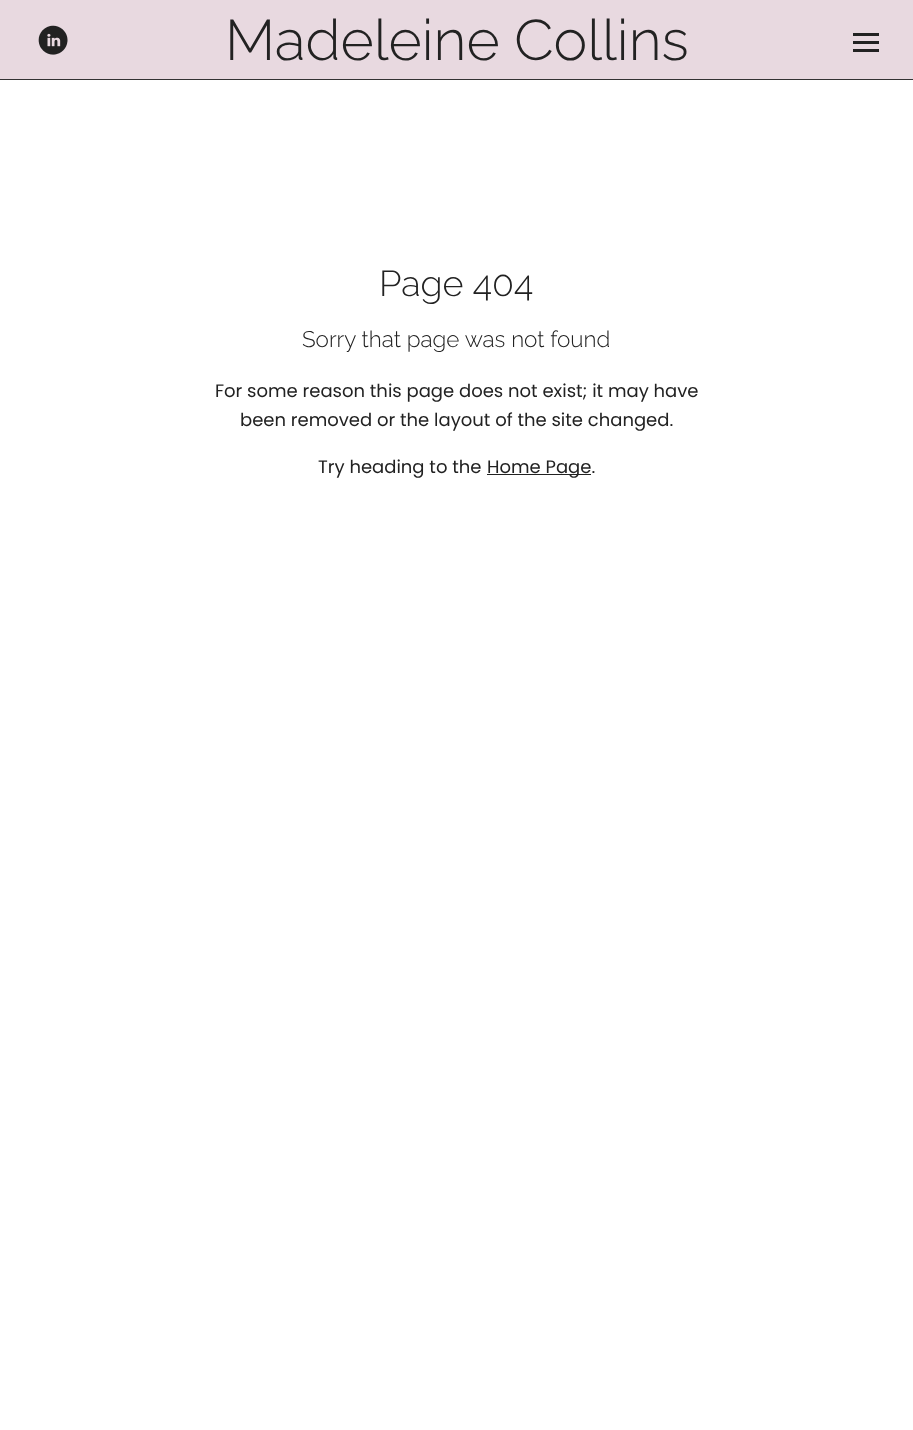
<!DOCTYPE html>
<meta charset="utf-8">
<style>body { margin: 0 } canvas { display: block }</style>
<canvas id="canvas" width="913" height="1430"></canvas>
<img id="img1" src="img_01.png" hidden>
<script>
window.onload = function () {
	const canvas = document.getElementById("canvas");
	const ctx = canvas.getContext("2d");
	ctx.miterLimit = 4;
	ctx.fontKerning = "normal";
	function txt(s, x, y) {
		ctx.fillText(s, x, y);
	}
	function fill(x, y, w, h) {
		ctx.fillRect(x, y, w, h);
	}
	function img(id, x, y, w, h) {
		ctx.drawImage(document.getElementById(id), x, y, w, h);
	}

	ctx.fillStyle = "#FFFFFF";
	fill(0, 0, 913, 1430);
	ctx.fillStyle = "#E8D9E0";
	fill(0, 0, 913, 79);
	ctx.fillStyle = "#333333";
	fill(0, 79, 913, 1);
	img("img1", 38, 25, 30, 30);
	ctx.fillStyle = "#222222";
	fill(853, 41, 26, 3);
	fill(853, 33, 26, 3);
	fill(853, 49, 26, 3);
	fill(487, 474, 104, 1);
	ctx.font = "100 57px Raleway";
	txt("Madeleine Collins", 225, 60);
	ctx.font = "100 36px Raleway";
	txt("Page 404", 379, 296);
	ctx.font = "100 22.5px Raleway";
	txt("Sorry that page was not found", 302, 347);
	ctx.font = "18px Poppins";
	txt("For some reason this page does not exist; it may have", 215, 397);
	txt("been removed or the layout of the site changed.", 240, 426);
	txt("Try heading to the", 318, 473);
	txt("Home Page.", 487, 473);
};
</script>
